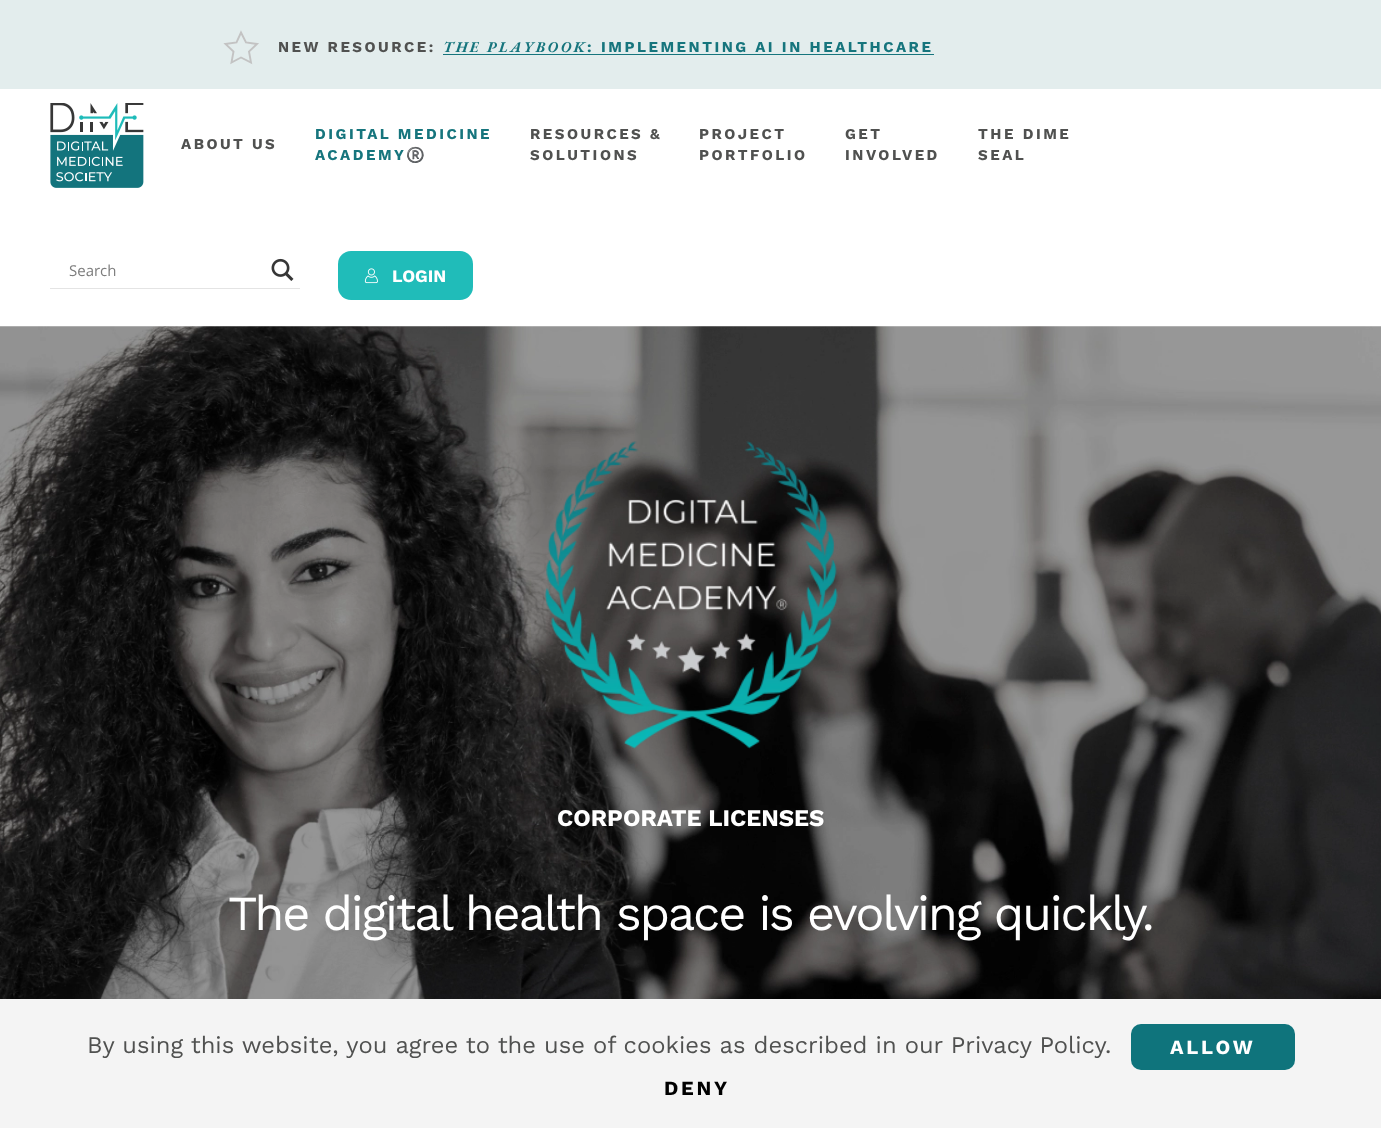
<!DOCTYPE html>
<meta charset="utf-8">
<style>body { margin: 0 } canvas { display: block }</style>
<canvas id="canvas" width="1381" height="1128"></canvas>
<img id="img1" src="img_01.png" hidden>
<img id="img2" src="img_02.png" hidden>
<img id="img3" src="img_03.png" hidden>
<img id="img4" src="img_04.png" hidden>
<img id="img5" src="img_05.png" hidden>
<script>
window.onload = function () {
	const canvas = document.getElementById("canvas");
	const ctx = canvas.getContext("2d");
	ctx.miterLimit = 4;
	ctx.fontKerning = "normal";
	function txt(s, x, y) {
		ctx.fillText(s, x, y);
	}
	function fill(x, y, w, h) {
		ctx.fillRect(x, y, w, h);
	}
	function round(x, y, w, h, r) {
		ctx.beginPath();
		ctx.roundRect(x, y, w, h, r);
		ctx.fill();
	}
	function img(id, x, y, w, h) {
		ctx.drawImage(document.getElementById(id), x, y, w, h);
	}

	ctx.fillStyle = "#FFFFFF";
	fill(0, 0, 1381, 1128);
	ctx.fillStyle = "#E3EDED";
	fill(0, 0, 1381, 89);
	ctx.beginPath();
	ctx.moveTo(241, 32.5);
	ctx.lineTo(246, 42.5);
	ctx.lineTo(257, 44);
	ctx.lineTo(249, 51.5);
	ctx.lineTo(251, 62.5);
	ctx.lineTo(241, 57.5);
	ctx.lineTo(231.5, 62.5);
	ctx.lineTo(233.5, 51.5);
	ctx.lineTo(225.5, 44);
	ctx.lineTo(236.5, 42.5);
	ctx.closePath();
	ctx.strokeStyle = "#C3C3C3";
	ctx.lineWidth = 1.9;
	ctx.stroke();
	ctx.fillStyle = "#16757D";
	fill(443, 54, 491, 1);
	img("img1", 50, 103, 94, 85);
	ctx.fillStyle = "#E4E4E4";
	fill(50, 288, 250, 1);
	img("img2", 271, 258, 23, 23);
	ctx.fillStyle = "#20BCB9";
	round(338, 251, 135, 49, 13);
	img("img3", 364, 268, 14, 16);
	img("img4", 0, 326, 1381, 673);
	img("img5", 545, 441, 293, 308);
	ctx.fillStyle = "#F4F4F4";
	fill(0, 999, 1381, 129);
	ctx.fillStyle = "#0F747C";
	round(1131, 1024, 164, 46, 10);
	ctx.letterSpacing = "2.5px";
	ctx.font = "bold 15px Work Sans";
	ctx.fillStyle = "#505150";
	txt("NEW RESOURCE:", 278, 52);
	ctx.font = "italic bold 15px EB Garamond";
	ctx.fillStyle = "#16757D";
	txt("THE PLAYBOOK", 443, 52);
	ctx.font = "bold 15px Work Sans";
	txt(": IMPLEMENTING AI IN HEALTHCARE", 587, 52);
	ctx.fillStyle = "#505150";
	txt("ABOUT US", 181, 149);
	ctx.fillStyle = "#16757D";
	txt("DIGITAL MEDICINE", 315, 139);
	txt("ACADEMY", 315, 160);
	ctx.font = "bold 15px Noto Color Emoji";
	txt("®️", 406, 160);
	ctx.font = "bold 15px Work Sans";
	ctx.fillStyle = "#505150";
	txt("RESOURCES &", 530, 139);
	txt("SOLUTIONS", 530, 160);
	txt("PROJECT", 699, 139);
	txt("PORTFOLIO", 699, 160);
	txt("GET", 845, 139);
	txt("INVOLVED", 845, 160);
	txt("THE DIME", 978, 139);
	txt("SEAL", 978, 160);
	ctx.letterSpacing = "0px";
	ctx.font = "15px Open Sans";
	ctx.fillStyle = "#7D7D7D";
	txt("Search", 69, 276);
	ctx.font = "bold 17.5px Work Sans";
	ctx.fillStyle = "#FFFFFF";
	txt("LOGIN", 392, 282);
	ctx.font = "bold 23.75px Work Sans";
	txt("CORPORATE LICENSES", 557, 826);
	ctx.letterSpacing = "-2.25px";
	ctx.font = "48.75px Work Sans";
	txt("The digital health space is evolving quickly.", 228, 930);
	ctx.letterSpacing = "0px";
	ctx.font = "23.75px Work Sans";
	ctx.fillStyle = "#505150";
	txt("By using this website, you agree to the use of cookies as described in our Privacy Policy.", 87, 1053);
	ctx.letterSpacing = "2.75px";
	ctx.font = "bold 20px Work Sans";
	ctx.fillStyle = "#FFFFFF";
	txt("ALLOW", 1170, 1054);
	ctx.fillStyle = "#000000";
	txt("DENY", 664, 1095);
};
</script>
